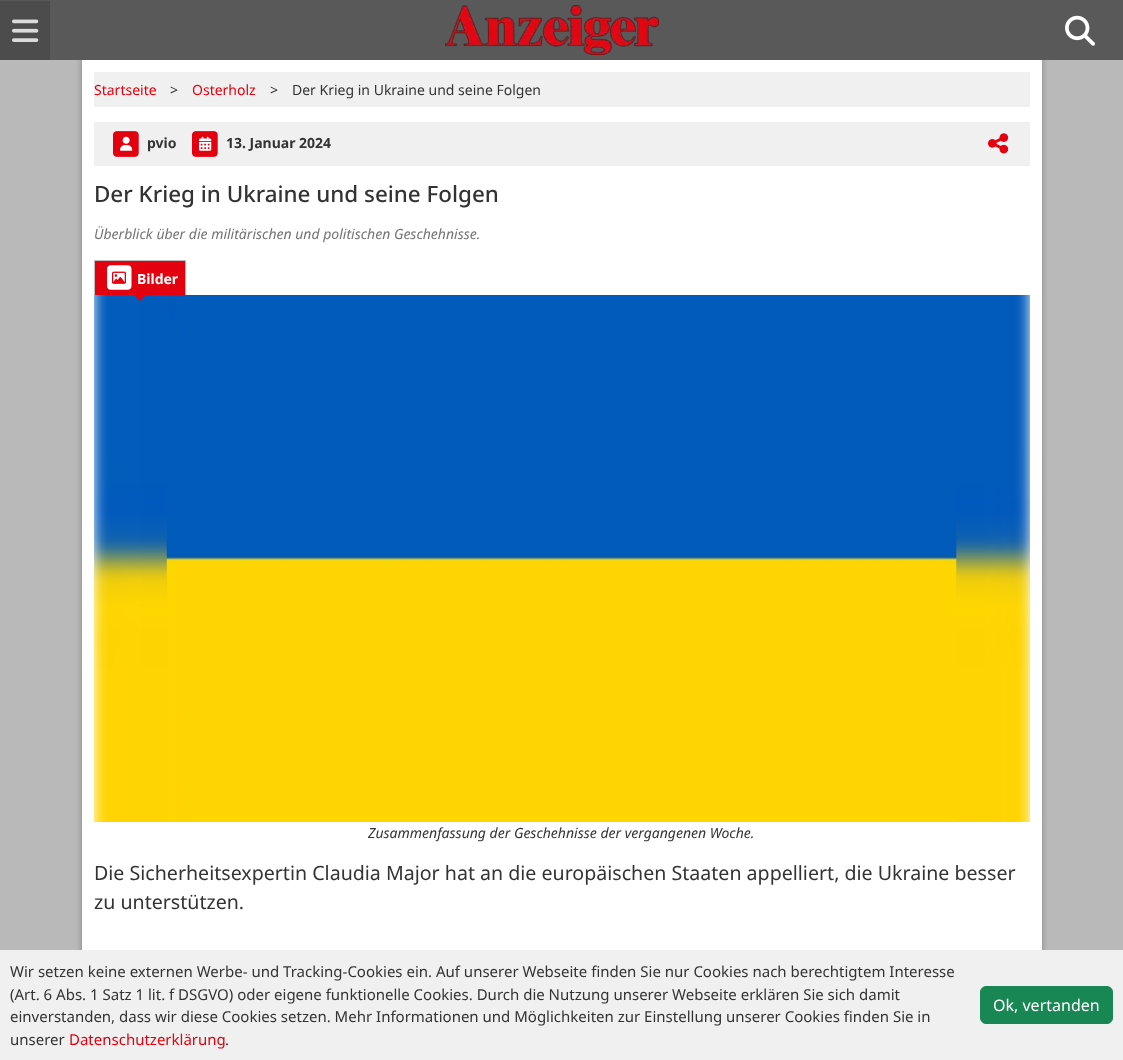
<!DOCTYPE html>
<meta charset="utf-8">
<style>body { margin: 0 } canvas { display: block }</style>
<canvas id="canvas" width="1123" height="1060"></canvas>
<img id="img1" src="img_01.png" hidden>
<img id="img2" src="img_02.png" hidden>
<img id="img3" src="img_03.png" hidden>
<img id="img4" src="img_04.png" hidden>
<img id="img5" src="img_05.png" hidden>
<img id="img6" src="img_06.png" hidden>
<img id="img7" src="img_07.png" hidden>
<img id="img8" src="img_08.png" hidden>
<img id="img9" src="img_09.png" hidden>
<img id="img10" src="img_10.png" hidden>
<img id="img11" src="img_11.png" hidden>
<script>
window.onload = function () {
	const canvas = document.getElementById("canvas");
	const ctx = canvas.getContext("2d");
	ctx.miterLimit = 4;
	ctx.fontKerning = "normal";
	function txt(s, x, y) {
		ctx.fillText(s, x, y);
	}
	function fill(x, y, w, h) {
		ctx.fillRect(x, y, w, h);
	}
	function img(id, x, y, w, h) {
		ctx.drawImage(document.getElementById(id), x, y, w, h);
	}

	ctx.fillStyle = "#B9B9B9";
	fill(0, 0, 1123, 1060);
	ctx.fillStyle = "rgba(0, 0, 0, 0.28)";
	ctx.filter = "blur(3px)";
	ctx.beginPath();
	ctx.rect(82, 0, 960, 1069);
	ctx.fill();
	ctx.filter = "none";
	ctx.fillStyle = "#595959";
	fill(0, 0, 1123, 60);
	ctx.fillStyle = "#4C4C4C";
	fill(0, 1, 50, 59);
	img("img1", 12, 19, 27, 23);
	img("img2", 445, 5, 214, 50);
	img("img3", 1065, 15, 30, 31);
	ctx.fillStyle = "#FFFFFF";
	fill(82, 60, 960, 890);
	ctx.fillStyle = "#F0F0F0";
	fill(94, 72, 936, 35);
	fill(94, 122, 936, 44);
	img("img4", 113, 131, 26, 26);
	img("img5", 120, 136, 13, 15);
	img("img4", 192, 131, 26, 26);
	img("img6", 199, 136, 13, 15);
	img("img7", 988, 133, 21, 21);
	ctx.fillStyle = "#E3000F";
	fill(95, 261, 90, 34);
	ctx.fillStyle = "#BDBDBD";
	fill(94, 260, 92, 1);
	fill(185, 260, 1, 35);
	fill(94, 260, 1, 35);
	img("img8", 107, 265, 25, 25);
	img("img9", 112, 271, 14, 13);
	img("img10", 94, 295, 936, 527);
	ctx.fillStyle = "#E3000F";
	ctx.beginPath();
	ctx.moveTo(134, 295);
	ctx.lineTo(146, 295);
	ctx.lineTo(140, 301);
	ctx.closePath();
	ctx.fill();
	img("img11", 166, 536, 791, 45);
	ctx.fillStyle = "#F0F0F0";
	fill(0, 950, 1123, 110);
	ctx.fillStyle = "#198754";
	ctx.beginPath();
	ctx.roundRect(980.5, 986.5, 132, 37, 5.5);
	ctx.fill();
	ctx.strokeStyle = "#198754";
	ctx.stroke();
	ctx.font = "14px Noto Sans";
	ctx.fillStyle = "#E3000F";
	txt("Startseite", 94, 95);
	ctx.fillStyle = "#333333";
	txt(">", 170, 95);
	ctx.fillStyle = "#E3000F";
	txt("Osterholz", 192, 95);
	ctx.fillStyle = "#333333";
	txt(">", 270, 95);
	txt("Der Krieg in Ukraine und seine Folgen", 292, 95);
	ctx.font = "bold 14px Noto Sans";
	txt("pvio", 147, 148);
	txt("13. Januar 2024", 226, 148);
	ctx.font = "500 22.4px Noto Sans";
	txt("Der Krieg in Ukraine und seine Folgen", 94, 202);
	ctx.font = "italic 14px Noto Sans";
	ctx.fillStyle = "#737373";
	txt("Überblick über die militärischen und politischen Geschehnisse.", 94, 239);
	ctx.font = "bold 14px Noto Sans";
	ctx.fillStyle = "#FFFFFF";
	txt("Bilder", 137, 284);
	ctx.font = "italic 14px Noto Sans";
	ctx.fillStyle = "#333333";
	txt("Zusammenfassung der Geschehnisse der vergangenen Woche.", 368, 838);
	ctx.font = "19.6px Noto Sans";
	txt("Die Sicherheitsexpertin Claudia Major hat an die europäischen Staaten appelliert, die Ukraine besser", 94, 880);
	txt("zu unterstützen.", 94, 909);
	ctx.font = "15px Noto Sans";
	txt("Wir setzen keine externen Werbe- und Tracking-Cookies ein. Auf unserer Webseite finden Sie nur Cookies nach berechtigtem Interesse", 10, 977);
	txt("(Art. 6 Abs. 1 Satz 1 lit. f DSGVO) oder eigene funktionelle Cookies. Durch die Nutzung unserer Webseite erklären Sie sich damit", 10, 1000);
	txt("einverstanden, dass wir diese Cookies setzen. Mehr Informationen und Möglichkeiten zur Einstellung unserer Cookies finden Sie in", 10, 1022);
	txt("unserer", 10, 1045);
	ctx.fillStyle = "#E3000F";
	txt("Datenschutzerklärung", 69, 1045);
	ctx.fillStyle = "#333333";
	txt(".", 225, 1045);
	ctx.font = "16px Noto Sans";
	ctx.fillStyle = "#FFFFFF";
	txt("Ok, vertanden", 993, 1011);
};
</script>
